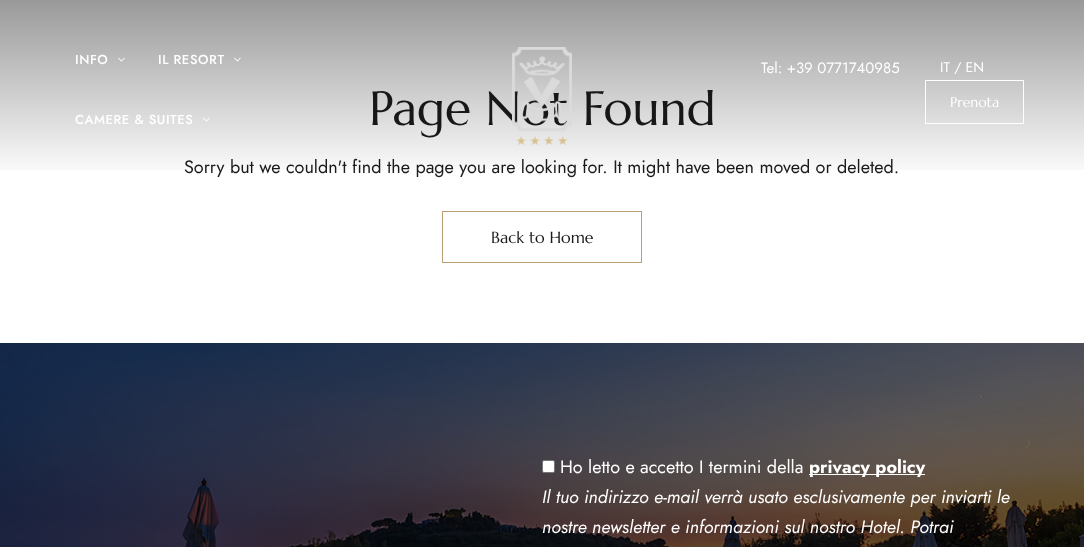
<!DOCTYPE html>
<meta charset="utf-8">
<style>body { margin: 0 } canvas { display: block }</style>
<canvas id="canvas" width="1084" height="547"></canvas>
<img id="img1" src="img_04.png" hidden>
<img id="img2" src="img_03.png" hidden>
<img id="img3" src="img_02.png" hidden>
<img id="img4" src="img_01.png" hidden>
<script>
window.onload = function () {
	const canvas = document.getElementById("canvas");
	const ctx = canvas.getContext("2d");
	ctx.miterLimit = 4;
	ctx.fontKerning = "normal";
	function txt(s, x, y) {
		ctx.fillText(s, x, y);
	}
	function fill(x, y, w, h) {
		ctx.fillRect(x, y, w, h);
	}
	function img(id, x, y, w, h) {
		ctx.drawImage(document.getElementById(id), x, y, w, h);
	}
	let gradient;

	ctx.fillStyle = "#FFFFFF";
	fill(0, 0, 1084, 547);
	ctx.strokeStyle = "#B99D75";
	ctx.strokeRect(442.5, 211.5, 199, 51);
	img("img1", 0, 343, 1084, 204);
	ctx.beginPath();
	ctx.roundRect(542.5, 460.5, 12, 12, 1.5);
	ctx.fill();
	ctx.strokeStyle = "#767676";
	ctx.stroke();
	fill(809, 474, 116, 1);
	ctx.font = "48px Marcellus";
	ctx.fillStyle = "#1A1B1A";
	txt("Page Not Found", 369, 125);
	ctx.font = "18px Jost";
	txt("Sorry but we couldn't find the page you are looking for. It might have been moved or deleted.", 184, 173);
	gradient = ctx.createLinearGradient(542, 0, 542, 180);
	gradient.addColorStop(0, "rgba(0, 0, 0, 0.4)");
	gradient.addColorStop(1, "rgba(0, 0, 0, 0)");
	ctx.fillStyle = gradient;
	fill(0, 0, 1084, 170);
	ctx.strokeStyle = "#FFFFFF";
	ctx.strokeRect(925.5, 80.5, 98, 43);
	ctx.font = "14px Marcellus";
	ctx.fillStyle = "#FFFFFF";
	txt("Prenota", 950, 107);
	ctx.font = "14px Jost";
	txt("IT / EN", 940, 72);
	ctx.font = "15px Jost";
	txt("Tel: +39 0771740985", 761, 73);
	img("img2", 512, 47, 60, 98);
	img("img3", 203, 118, 7, 4);
	ctx.letterSpacing = "0.6px";
	ctx.font = "500 13px Jost";
	txt("CAMERE & SUITES", 75, 124);
	img("img4", 234, 57, 7, 5);
	txt("IL RESORT", 158, 64);
	img("img4", 118, 57, 7, 5);
	txt("INFO", 75, 64);
	ctx.letterSpacing = "0px";
	ctx.font = "16px Marcellus";
	ctx.fillStyle = "#1A1B1A";
	txt("Back to Home", 491, 243);
	ctx.font = "18px Jost";
	ctx.fillStyle = "#FFFFFF";
	txt("Ho letto e accetto I termini della", 560, 473);
	ctx.font = "bold 18px Jost";
	txt("privacy policy", 809, 473);
	ctx.font = "italic 18px Jost";
	txt("Il tuo indirizzo e-mail verrà usato esclusivamente per inviarti le", 542, 503);
	txt("nostre newsletter e informazioni sul nostro Hotel. Potrai", 542, 533);
};
</script>
